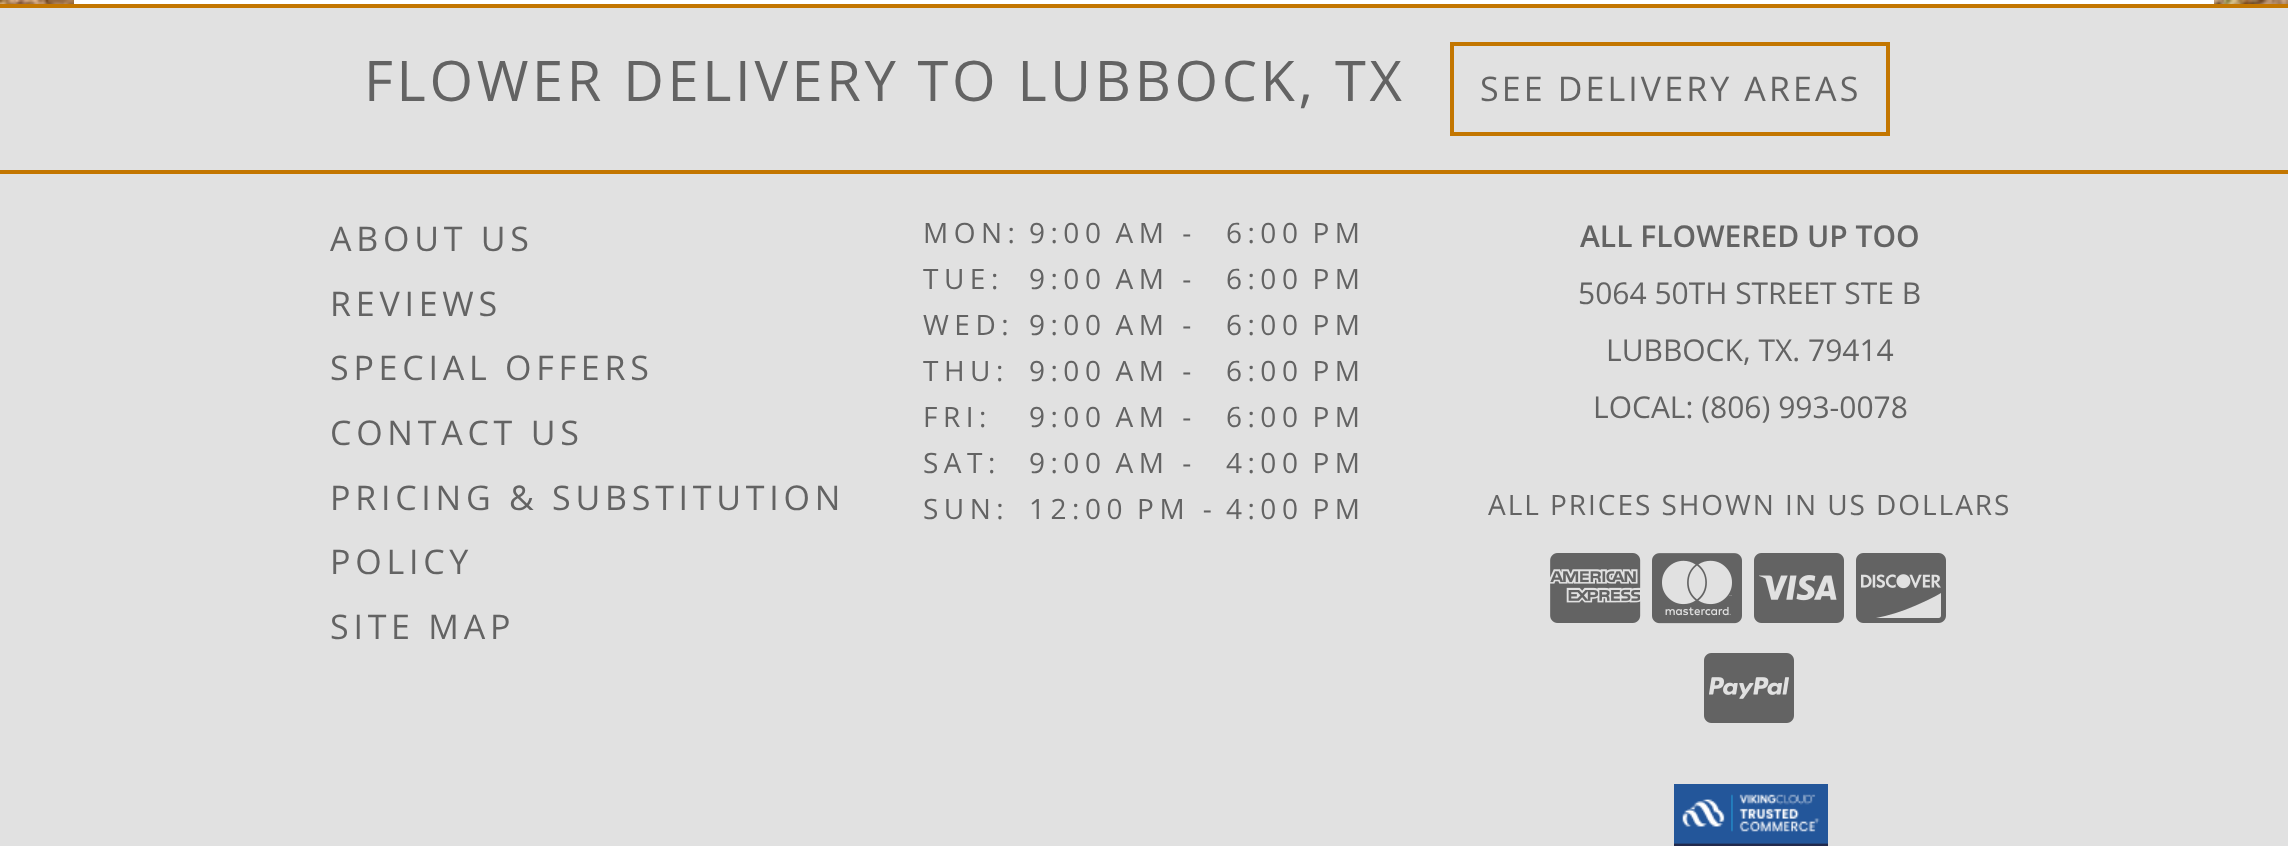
<!DOCTYPE html>
<meta charset="utf-8">
<style>body { margin: 0 } canvas { display: block }</style>
<canvas id="canvas" width="2288" height="846"></canvas>
<img id="img1" src="img_01.png" hidden>
<img id="img2" src="img_02.png" hidden>
<img id="img3" src="img_03.png" hidden>
<img id="img4" src="img_04.png" hidden>
<img id="img5" src="img_05.png" hidden>
<img id="img6" src="img_06.png" hidden>
<img id="img7" src="img_07.png" hidden>
<script>
window.onload = function () {
	const canvas = document.getElementById("canvas");
	const ctx = canvas.getContext("2d");
	ctx.miterLimit = 4;
	ctx.fontKerning = "normal";
	function txt(s, x, y) {
		ctx.fillText(s, x, y);
	}
	function fill(x, y, w, h) {
		ctx.fillRect(x, y, w, h);
	}
	function img(id, x, y, w, h) {
		ctx.drawImage(document.getElementById(id), x, y, w, h);
	}

	ctx.fillStyle = "#FFFFFF";
	fill(0, 0, 2288, 846);
	img("img1", 0, 0, 2288, 4);
	fill(74, 0, 2140, 4);
	ctx.fillStyle = "#E1E1E1";
	fill(0, 8, 2288, 162);
	ctx.fillStyle = "#C37600";
	fill(0, 4, 2288, 4);
	fill(0, 170, 2288, 4);
	ctx.strokeStyle = "#C37600";
	ctx.lineWidth = 4;
	ctx.strokeRect(1452, 44, 436, 90);
	ctx.fillStyle = "#E1E1E1";
	fill(0, 174, 2288, 672);
	img("img2", 1550, 553, 91, 70);
	img("img3", 1652, 553, 90, 71);
	img("img4", 1754, 553, 90, 70);
	img("img5", 1856, 553, 90, 70);
	img("img6", 1704, 653, 90, 70);
	img("img7", 1674, 784, 154, 62);
	ctx.letterSpacing = "3.65px";
	ctx.font = "56px Open Sans";
	ctx.fillStyle = "#636363";
	txt("FLOWER DELIVERY TO LUBBOCK, TX", 364, 101);
	ctx.letterSpacing = "3.1px";
	ctx.font = "34px Open Sans";
	txt("SEE DELIVERY AREAS", 1480, 101);
	ctx.letterSpacing = "4.75px";
	txt("ABOUT US", 330, 251);
	txt("REVIEWS", 330, 316);
	txt("SPECIAL OFFERS", 330, 380);
	txt("CONTACT US", 330, 445);
	txt("PRICING & SUBSTITUTION", 330, 510);
	txt("POLICY", 330, 574);
	txt("SITE MAP", 330, 639);
	ctx.letterSpacing = "5.5px";
	ctx.font = "28px Open Sans";
	txt("MON:", 923, 243);
	txt("9:00 AM -", 1029, 243);
	txt("6:00 PM", 1226, 243);
	txt("TUE:", 923, 289);
	txt("9:00 AM -", 1029, 289);
	txt("6:00 PM", 1226, 289);
	txt("WED:", 923, 335);
	txt("9:00 AM -", 1029, 335);
	txt("6:00 PM", 1226, 335);
	txt("THU:", 923, 381);
	txt("9:00 AM -", 1029, 381);
	txt("6:00 PM", 1226, 381);
	txt("FRI:", 923, 427);
	txt("9:00 AM -", 1029, 427);
	txt("6:00 PM", 1226, 427);
	txt("SAT:", 923, 473);
	txt("9:00 AM -", 1029, 473);
	txt("4:00 PM", 1226, 473);
	txt("SUN:", 923, 519);
	txt("12:00 PM -", 1029, 519);
	txt("4:00 PM", 1226, 519);
	ctx.letterSpacing = "0px";
	ctx.font = "600 30px Open Sans";
	txt("ALL FLOWERED UP TOO", 1580, 247);
	ctx.font = "30px Open Sans";
	txt("5064 50TH STREET STE B", 1578, 304);
	txt("LUBBOCK, TX. 79414", 1606, 361);
	txt("LOCAL: (806) 993-0078", 1593, 418);
	ctx.letterSpacing = "1.95px";
	ctx.font = "28px Open Sans";
	txt("ALL PRICES SHOWN IN US DOLLARS", 1488, 515);
};
</script>
